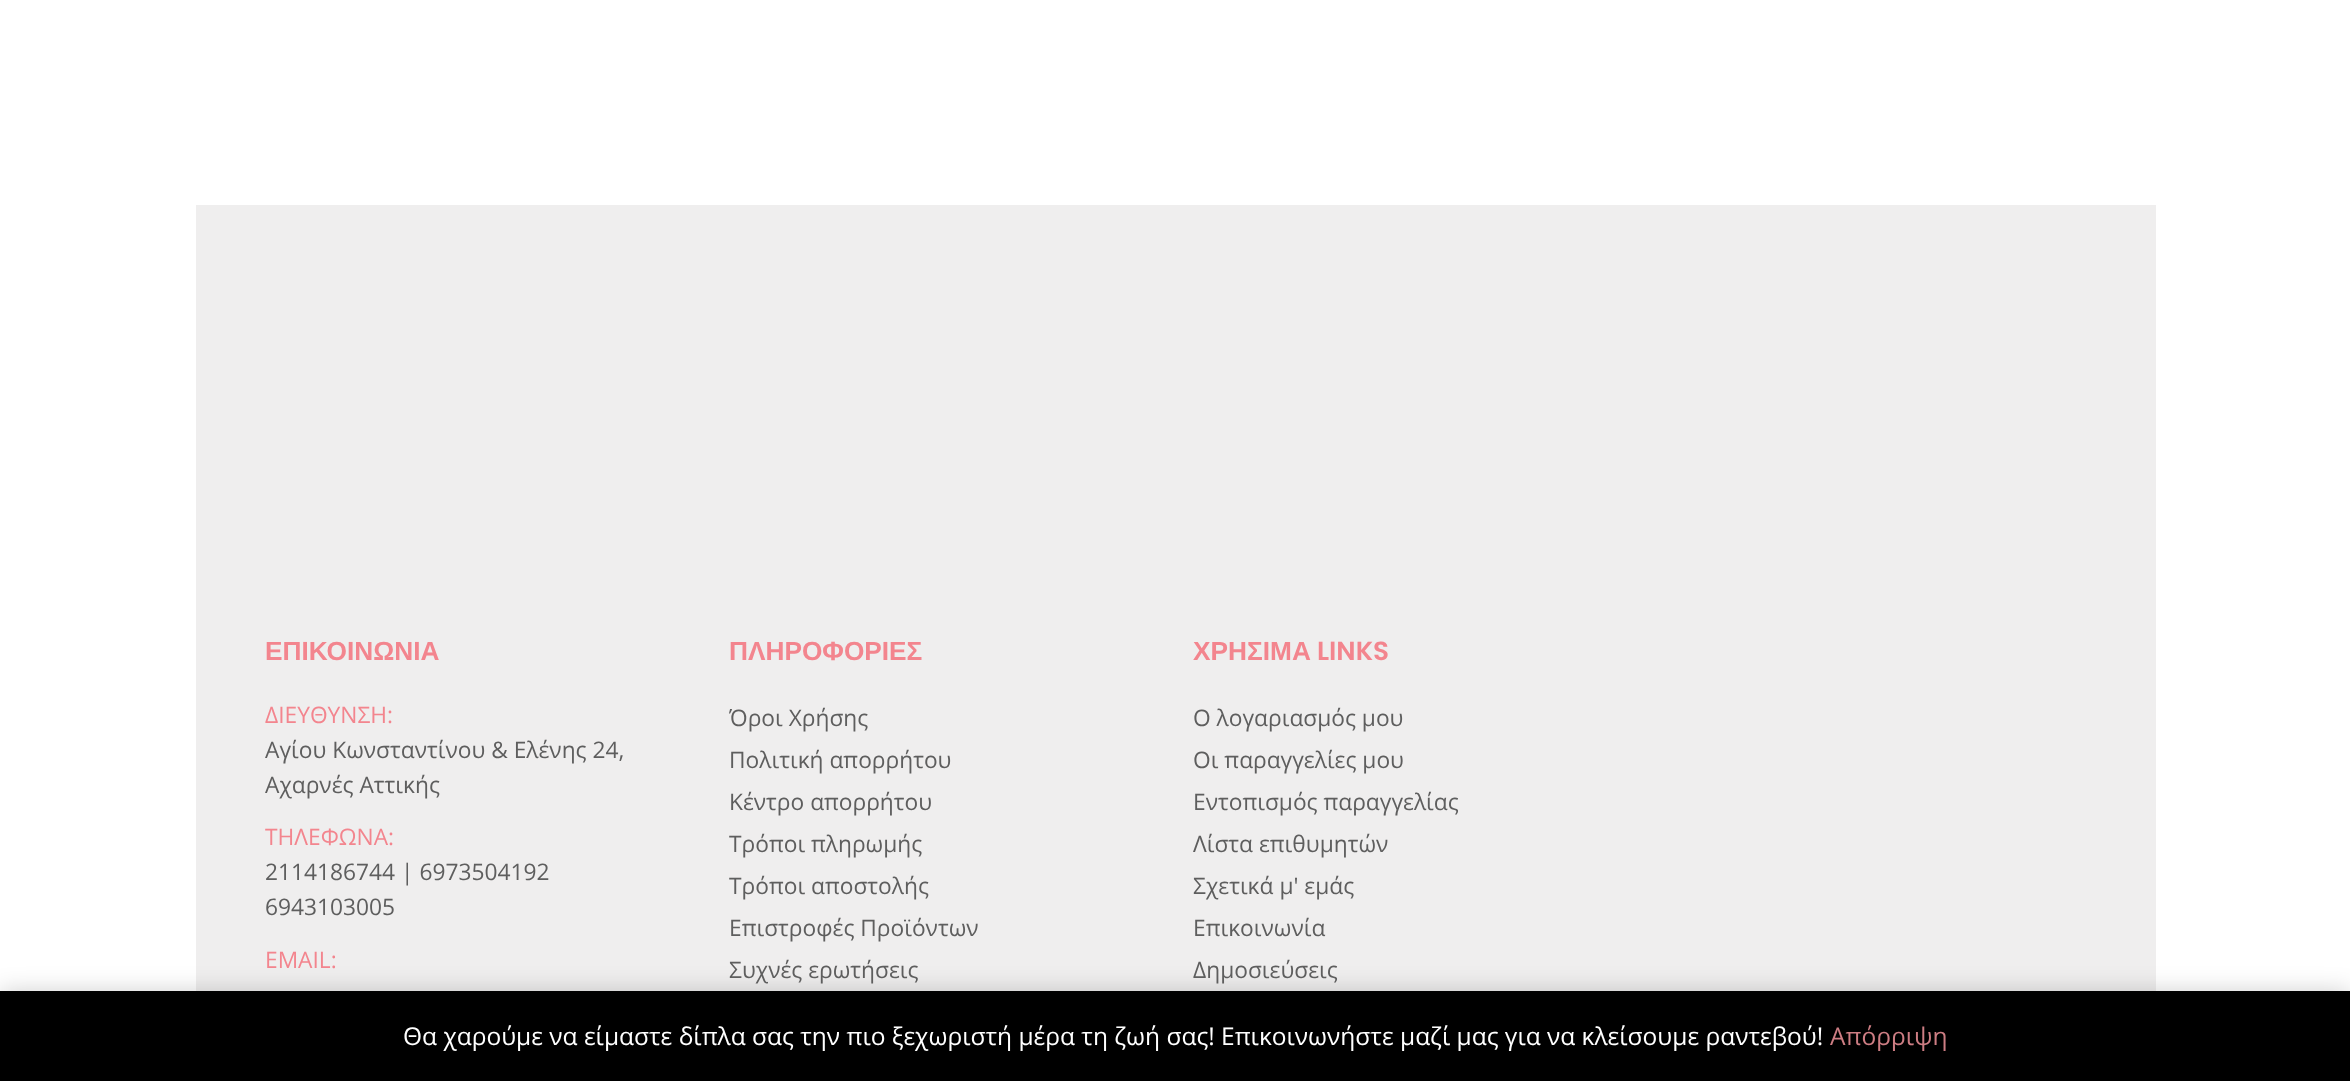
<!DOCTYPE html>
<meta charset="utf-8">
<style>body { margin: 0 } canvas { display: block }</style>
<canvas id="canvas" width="2350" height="1081"></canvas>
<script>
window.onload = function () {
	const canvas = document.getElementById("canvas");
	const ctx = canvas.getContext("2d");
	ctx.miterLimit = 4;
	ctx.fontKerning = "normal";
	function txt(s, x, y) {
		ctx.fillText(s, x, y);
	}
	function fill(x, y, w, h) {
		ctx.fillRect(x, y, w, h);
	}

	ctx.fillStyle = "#FFFFFF";
	fill(0, 0, 2350, 1081);
	ctx.fillStyle = "#EFEEEE";
	fill(196, 205, 1960, 786);
	ctx.fillStyle = "rgba(0, 0, 0, 0.2)";
	ctx.filter = "blur(12px)";
	ctx.beginPath();
	ctx.rect(0, 992, 2350, 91);
	ctx.fill();
	ctx.filter = "none";
	ctx.fillStyle = "#000000";
	fill(0, 991, 2350, 90);
	ctx.font = "bold 26.25px Liberation Sans";
	ctx.fillStyle = "#F3858E";
	txt("ΕΠΙΚΟΙΝΩΝΙΑ", 265, 660);
	ctx.font = "22.75px Open Sans";
	txt("ΔΙΕΥΘΥΝΣΗ:", 265, 723);
	ctx.fillStyle = "#5E5E5E";
	txt("Αγίου Κωνσταντίνου & Ελένης 24,", 265, 758);
	txt("Αχαρνές Αττικής", 265, 793);
	ctx.fillStyle = "#F3858E";
	txt("ΤΗΛΕΦΩΝΑ:", 265, 845);
	ctx.fillStyle = "#5E5E5E";
	txt("2114186744 | 6973504192", 265, 880);
	txt("6943103005", 265, 915);
	ctx.fillStyle = "#F3858E";
	txt("EMAIL:", 265, 968);
	ctx.font = "bold 26.25px Liberation Sans";
	txt("ΠΛΗΡΟΦΟΡΙΕΣ", 729, 660);
	ctx.font = "22.75px Open Sans";
	ctx.fillStyle = "#5E5E5E";
	txt("Όροι Χρήσης", 729, 726);
	txt("Πολιτική απορρήτου", 729, 768);
	txt("Κέντρο απορρήτου", 729, 810);
	txt("Τρόποι πληρωμής", 729, 852);
	txt("Τρόποι αποστολής", 729, 894);
	txt("Επιστροφές Προϊόντων", 729, 936);
	txt("Συχνές ερωτήσεις", 729, 978);
	ctx.font = "bold 26.25px Liberation Sans";
	ctx.fillStyle = "#F3858E";
	txt("ΧΡΗΣΙΜΑ", 1193, 660);
	ctx.font = "600 26.25px Poppins";
	txt("LINKS", 1317, 660);
	ctx.font = "22.75px Open Sans";
	ctx.fillStyle = "#5E5E5E";
	txt("Ο λογαριασμός μου", 1193, 726);
	txt("Οι παραγγελίες μου", 1193, 768);
	txt("Εντοπισμός παραγγελίας", 1193, 810);
	txt("Λίστα επιθυμητών", 1193, 852);
	txt("Σχετικά μ' εμάς", 1193, 894);
	txt("Επικοινωνία", 1193, 936);
	txt("Δημοσιεύσεις", 1193, 978);
	ctx.font = "24.5px Open Sans";
	ctx.fillStyle = "#FFFFFF";
	txt("Θα χαρούμε να είμαστε δίπλα σας την πιο ξεχωριστή μέρα τη ζωή σας! Επικοινωνήστε μαζί μας για να κλείσουμε ραντεβού!", 403, 1045);
	ctx.fillStyle = "#CD7D83";
	txt("Απόρριψη", 1830, 1045);
};
</script>
